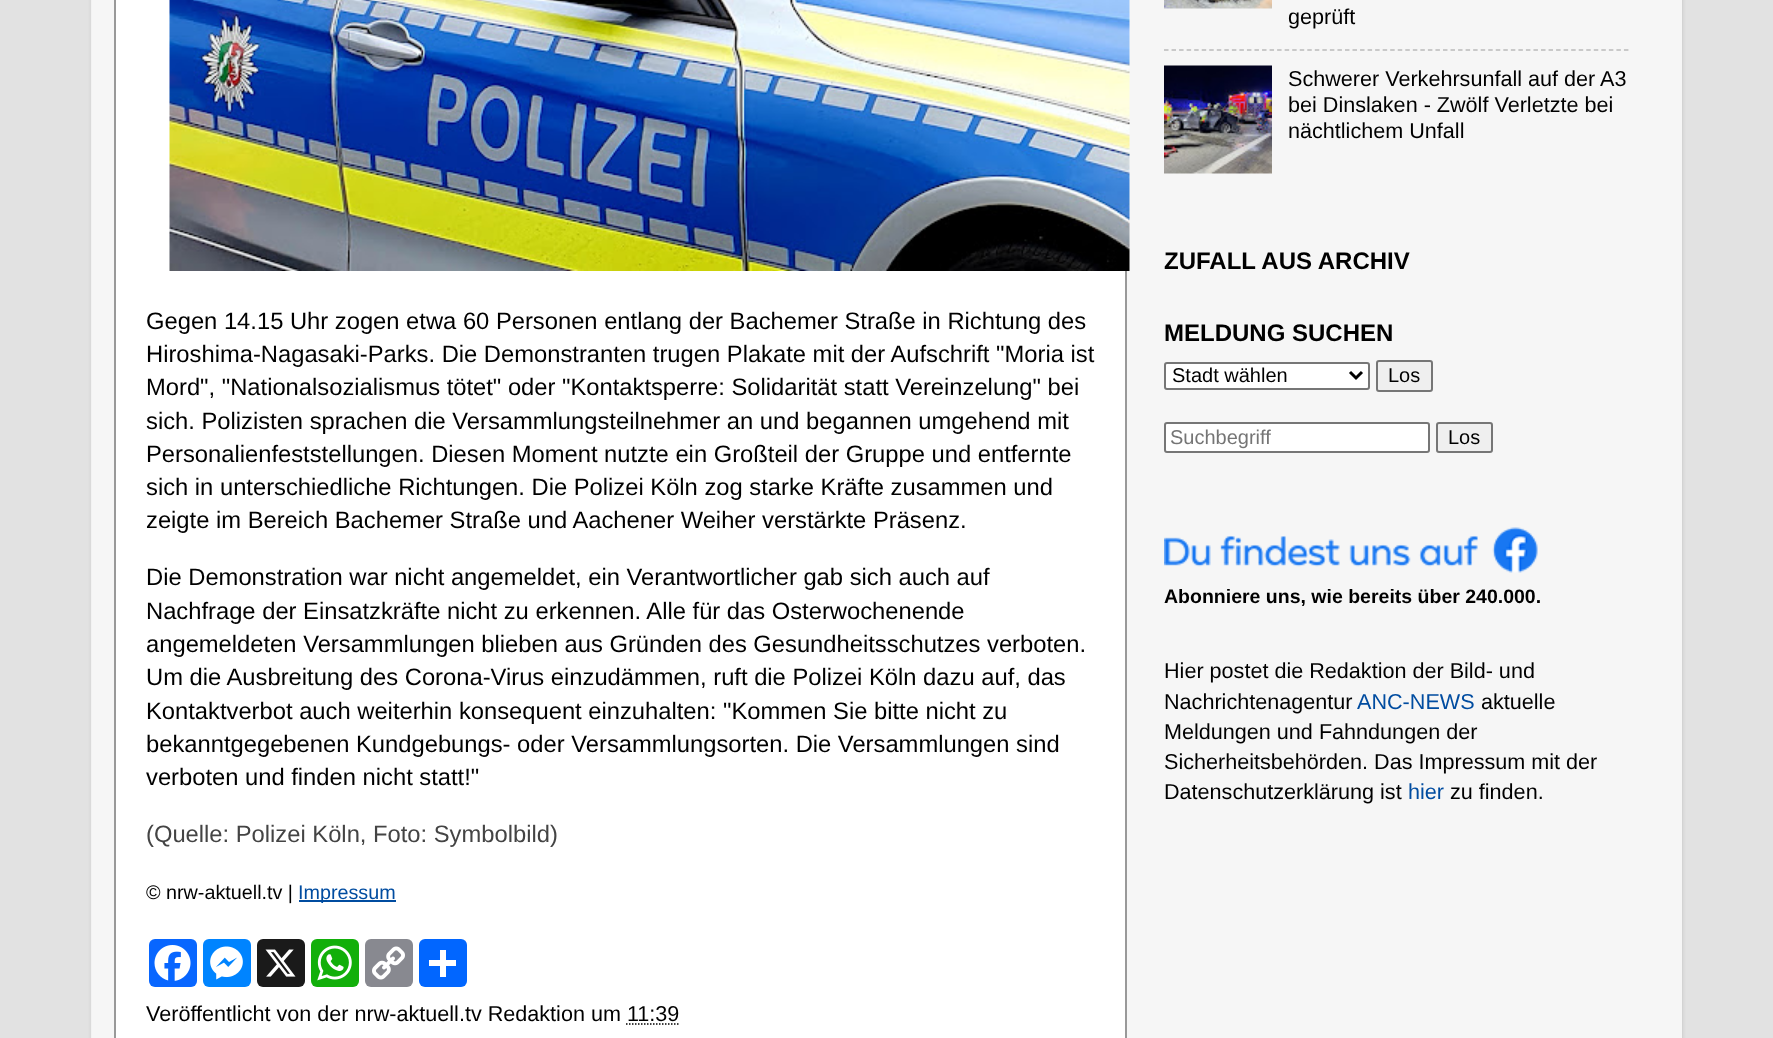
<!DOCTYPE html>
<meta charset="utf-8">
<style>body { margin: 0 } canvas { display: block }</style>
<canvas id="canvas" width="1773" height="1038"></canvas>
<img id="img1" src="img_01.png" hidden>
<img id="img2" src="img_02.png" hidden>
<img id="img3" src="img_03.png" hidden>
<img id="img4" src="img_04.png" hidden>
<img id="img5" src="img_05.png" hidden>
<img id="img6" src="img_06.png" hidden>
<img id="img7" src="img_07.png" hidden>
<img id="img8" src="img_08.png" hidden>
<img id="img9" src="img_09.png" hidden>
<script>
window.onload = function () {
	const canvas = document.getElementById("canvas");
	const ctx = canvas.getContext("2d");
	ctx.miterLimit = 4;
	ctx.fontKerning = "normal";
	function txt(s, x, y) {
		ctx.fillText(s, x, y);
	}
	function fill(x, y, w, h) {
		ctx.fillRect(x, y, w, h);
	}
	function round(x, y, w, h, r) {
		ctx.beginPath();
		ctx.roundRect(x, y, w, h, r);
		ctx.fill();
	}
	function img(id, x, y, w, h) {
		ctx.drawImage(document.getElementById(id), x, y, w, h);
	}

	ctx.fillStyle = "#E2E2E2";
	fill(0, 0, 1773, 1038);
	ctx.save();
	ctx.beginPath();
	ctx.moveTo(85, 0);
	ctx.lineTo(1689, 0);
	ctx.lineTo(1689, 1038);
	ctx.lineTo(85, 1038);
	ctx.closePath();
	ctx.moveTo(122, -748);
	ctx.lineTo(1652, -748);
	ctx.bezierCurveTo(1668.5, -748, 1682, -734.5, 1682, -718);
	ctx.lineTo(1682, 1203);
	ctx.lineTo(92, 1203);
	ctx.lineTo(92, -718);
	ctx.bezierCurveTo(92, -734.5, 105.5, -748, 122, -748);
	ctx.closePath();
	ctx.clip("evenodd");
	ctx.fillStyle = "rgba(0, 0, 0, 0.15)";
	ctx.filter = "blur(2px)";
	ctx.beginPath();
	ctx.roundRect(92, -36, 1590, 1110, 30);
	ctx.fill();
	ctx.filter = "none";
	ctx.restore();
	ctx.fillStyle = "rgba(255, 255, 255, 0.7)";
	fill(91, 0, 1591, 1038);
	ctx.fillStyle = "#FFFFFF";
	ctx.beginPath();
	ctx.rect(115, -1, 1011, 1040);
	ctx.fill();
	ctx.strokeStyle = "#999999";
	ctx.lineWidth = 2;
	ctx.stroke();
	img("img1", 169, 0, 961, 271);
	ctx.fillStyle = "#004CA0";
	fill(299, 900, 97, 2);
	ctx.fillStyle = "#0866FF";
	round(149, 939, 48, 48, 6);
	img("img2", 154, 945, 37, 36);
	ctx.fillStyle = "#0084FF";
	round(203, 939, 48, 48, 6);
	img("img3", 210, 946, 33, 34);
	ctx.fillStyle = "#1A1A1A";
	round(257, 939, 48, 48, 6);
	img("img4", 265, 949, 31, 28);
	ctx.fillStyle = "#12AF0A";
	round(311, 939, 48, 48, 6);
	img("img5", 317, 945, 35, 36);
	ctx.fillStyle = "#888990";
	round(365, 939, 48, 48, 6);
	img("img6", 372, 946, 33, 34);
	ctx.fillStyle = "#0166FF";
	round(419, 939, 48, 48, 6);
	ctx.fillStyle = "#FFFFFF";
	fill(440, 950, 6, 27);
	fill(429, 960, 27, 6);
	ctx.beginPath();
	ctx.moveTo(626, 1024);
	ctx.lineTo(678.5, 1024);
	ctx.strokeStyle = "#000000";
	ctx.lineWidth = 1.5;
	ctx.setLineDash([1.5, 1.5]);
	ctx.stroke();
	img("img7", 1164, 0, 108, 9);
	ctx.beginPath();
	ctx.moveTo(1164, 50);
	ctx.lineTo(1629, 50);
	ctx.strokeStyle = "#BBBBBB";
	ctx.setLineDash([4.5, 3.04]);
	ctx.stroke();
	img("img8", 1164, 65, 108, 109);
	ctx.beginPath();
	ctx.roundRect(1165, 363, 204, 26, 2);
	ctx.fill();
	ctx.strokeStyle = "#767676";
	ctx.lineWidth = 2;
	ctx.setLineDash([]);
	ctx.stroke();
	ctx.beginPath();
	ctx.moveTo(1350, 372);
	ctx.lineTo(1356, 378);
	ctx.lineTo(1362, 372);
	ctx.strokeStyle = "#000000";
	ctx.lineWidth = 3;
	ctx.stroke();
	ctx.fillStyle = "#EFEFEF";
	ctx.beginPath();
	ctx.roundRect(1377, 361, 55, 30, 2);
	ctx.fill();
	ctx.strokeStyle = "#767676";
	ctx.lineWidth = 2;
	ctx.stroke();
	ctx.fillStyle = "#FFFFFF";
	ctx.beginPath();
	ctx.roundRect(1165, 423, 264, 29, 2);
	ctx.fill();
	ctx.stroke();
	ctx.fillStyle = "#EFEFEF";
	ctx.beginPath();
	ctx.roundRect(1437, 423, 55, 29, 2);
	ctx.fill();
	ctx.stroke();
	img("img9", 1164, 527, 374, 46);
	ctx.font = "23.75px Liberation Sans";
	ctx.fillStyle = "#000000";
	txt("Gegen 14.15 Uhr zogen etwa 60 Personen entlang der Bachemer Straße in Richtung des", 146, 329);
	txt("Hiroshima-Nagasaki-Parks. Die Demonstranten trugen Plakate mit der Aufschrift \"Moria ist", 146, 362);
	txt("Mord\", \"Nationalsozialismus tötet\" oder \"Kontaktsperre: Solidarität statt Vereinzelung\" bei", 146, 395);
	txt("sich. Polizisten sprachen die Versammlungsteilnehmer an und begannen umgehend mit", 146, 429);
	txt("Personalienfeststellungen. Diesen Moment nutzte ein Großteil der Gruppe und entfernte", 146, 462);
	txt("sich in unterschiedliche Richtungen. Die Polizei Köln zog starke Kräfte zusammen und", 146, 495);
	txt("zeigte im Bereich Bachemer Straße und Aachener Weiher verstärkte Präsenz.", 146, 528);
	txt("Die Demonstration war nicht angemeldet, ein Verantwortlicher gab sich auch auf", 146, 585);
	txt("Nachfrage der Einsatzkräfte nicht zu erkennen. Alle für das Osterwochenende", 146, 619);
	txt("angemeldeten Versammlungen blieben aus Gründen des Gesundheitsschutzes verboten.", 146, 652);
	txt("Um die Ausbreitung des Corona-Virus einzudämmen, ruft die Polizei Köln dazu auf, das", 146, 685);
	txt("Kontaktverbot auch weiterhin konsequent einzuhalten: \"Kommen Sie bitte nicht zu", 146, 719);
	txt("bekanntgegebenen Kundgebungs- oder Versammlungsorten. Die Versammlungen sind", 146, 752);
	txt("verboten und finden nicht statt!\"", 146, 785);
	ctx.fillStyle = "#444444";
	txt("(Quelle: Polizei Köln, Foto: Symbolbild)", 146, 842);
	ctx.font = "19.75px Liberation Sans";
	ctx.fillStyle = "#000000";
	txt("© nrw-aktuell.tv |", 146, 899);
	ctx.fillStyle = "#004CA0";
	txt("Impressum", 298, 899);
	ctx.font = "21.6px Liberation Sans";
	ctx.fillStyle = "#000000";
	txt("Veröffentlicht von der nrw-aktuell.tv Redaktion um 11:39", 146, 1021);
	txt("geprüft", 1288, 24);
	txt("Schwerer Verkehrsunfall auf der A3", 1288, 86);
	txt("bei Dinslaken - Zwölf Verletzte bei", 1288, 112);
	txt("nächtlichem Unfall", 1288, 138);
	ctx.font = "bold 24px Liberation Sans";
	txt("ZUFALL AUS ARCHIV", 1164, 269);
	txt("MELDUNG SUCHEN", 1164, 341);
	ctx.font = "20px Liberation Sans";
	txt("Stadt wählen", 1172, 382);
	txt("Los", 1388, 382);
	ctx.fillStyle = "#757575";
	txt("Suchbegriff", 1170, 444);
	ctx.fillStyle = "#000000";
	txt("Los", 1448, 444);
	ctx.font = "bold 19.5px Liberation Sans";
	txt("Abonniere uns, wie bereits über 240.000.", 1164, 603);
	ctx.font = "21.6px Liberation Sans";
	txt("Hier postet die Redaktion der Bild- und", 1164, 678);
	txt("Nachrichtenagentur", 1164, 709);
	ctx.fillStyle = "#004CA0";
	txt("ANC-NEWS", 1357, 709);
	ctx.fillStyle = "#000000";
	txt("aktuelle", 1481, 709);
	txt("Meldungen und Fahndungen der", 1164, 739);
	txt("Sicherheitsbehörden. Das Impressum mit der", 1164, 769);
	txt("Datenschutzerklärung ist", 1164, 799);
	ctx.fillStyle = "#004CA0";
	txt("hier", 1408, 799);
	ctx.fillStyle = "#000000";
	txt("zu finden.", 1450, 799);
};
</script>
